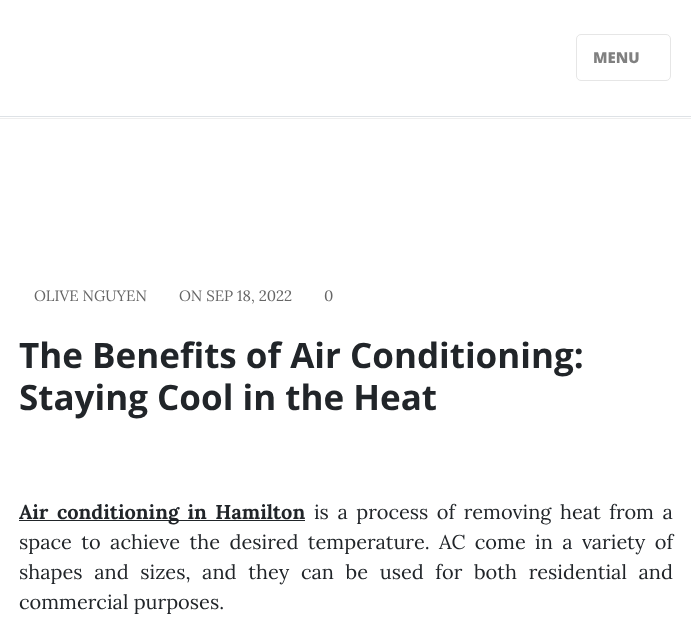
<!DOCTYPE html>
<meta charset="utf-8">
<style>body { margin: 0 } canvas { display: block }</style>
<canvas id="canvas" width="691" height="623"></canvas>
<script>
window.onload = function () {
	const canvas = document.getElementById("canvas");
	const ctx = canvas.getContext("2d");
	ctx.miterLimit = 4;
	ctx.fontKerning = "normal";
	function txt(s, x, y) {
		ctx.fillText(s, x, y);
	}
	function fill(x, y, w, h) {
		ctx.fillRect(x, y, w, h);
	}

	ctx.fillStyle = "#FFFFFF";
	fill(0, 0, 691, 623);
	ctx.fillStyle = "#EEEEEE";
	fill(0, 118, 691, 1);
	ctx.fillStyle = "#DEE2E6";
	fill(0, 116, 691, 1);
	ctx.beginPath();
	ctx.roundRect(576.5, 34.5, 94, 46, 4.5);
	ctx.strokeStyle = "#E6E6E6";
	ctx.stroke();
	ctx.fillStyle = "#212529";
	fill(19, 520, 286, 1);
	ctx.font = "800 15px Open Sans";
	ctx.fillStyle = "#808080";
	txt("MENU", 593, 63);
	ctx.font = "15px Lora";
	ctx.fillStyle = "#666666";
	txt("OLIVE NGUYEN", 34, 301);
	txt("ON SEP 18, 2022", 179, 301);
	txt("0", 324, 301);
	ctx.font = "bold 35px Open Sans";
	ctx.fillStyle = "#212529";
	txt("The Benefits of Air Conditioning:", 19, 368);
	txt("Staying Cool in the Heat", 19, 410);
	ctx.wordSpacing = "3.25px";
	ctx.font = "bold 20px Lora";
	txt("Air conditioning in Hamilton", 19, 519);
	ctx.font = "20px Lora";
	txt("is a process of removing heat from a", 314, 519);
	ctx.wordSpacing = "4.1px";
	txt("space to achieve the desired temperature. AC come in a variety of", 19, 549);
	ctx.wordSpacing = "6.4px";
	txt("shapes and sizes, and they can be used for both residential and", 19, 579);
	ctx.wordSpacing = "0px";
	txt("commercial purposes.", 19, 609);
};
</script>
